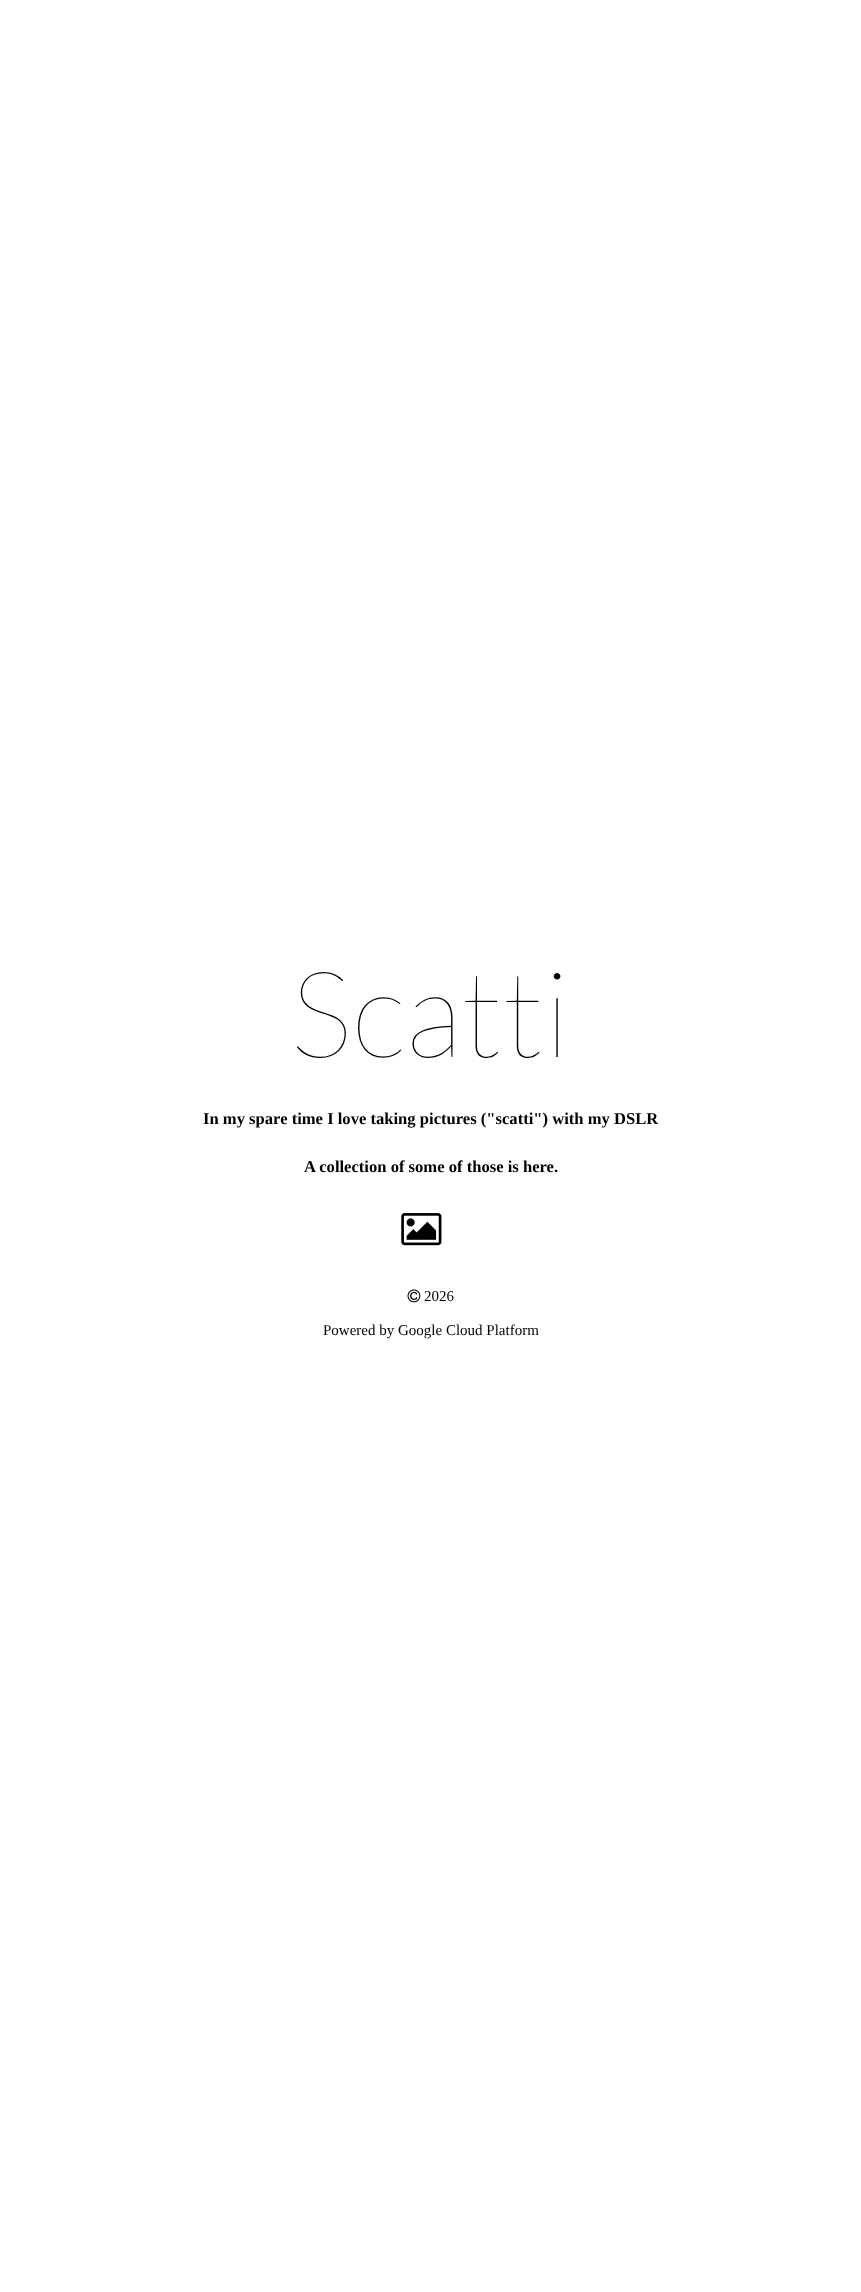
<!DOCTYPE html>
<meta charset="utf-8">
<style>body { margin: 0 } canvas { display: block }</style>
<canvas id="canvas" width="861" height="2292"></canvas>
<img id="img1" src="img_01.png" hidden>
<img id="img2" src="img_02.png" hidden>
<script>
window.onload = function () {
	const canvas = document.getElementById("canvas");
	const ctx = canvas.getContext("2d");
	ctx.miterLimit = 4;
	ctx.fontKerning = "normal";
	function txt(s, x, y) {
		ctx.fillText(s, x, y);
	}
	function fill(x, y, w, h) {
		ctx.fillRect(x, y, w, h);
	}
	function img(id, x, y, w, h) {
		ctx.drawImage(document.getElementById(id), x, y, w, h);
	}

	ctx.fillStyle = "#FFFFFF";
	fill(0, 0, 861, 2292);
	img("img1", 401, 1213, 41, 33);
	img("img2", 407, 1289, 14, 14);
	ctx.font = "100 120px Lato";
	ctx.fillStyle = "#000000";
	txt("Scatti", 290, 1057);
	ctx.font = "bold 16.6px Liberation Serif";
	txt("In my spare time I love taking pictures (\"scatti\") with my DSLR", 203, 1124);
	txt("A collection of some of those is here.", 304, 1172);
	ctx.font = "15px Liberation Serif";
	txt("2026", 424, 1301);
	txt("Powered by Google Cloud Platform", 323, 1335);
};
</script>
